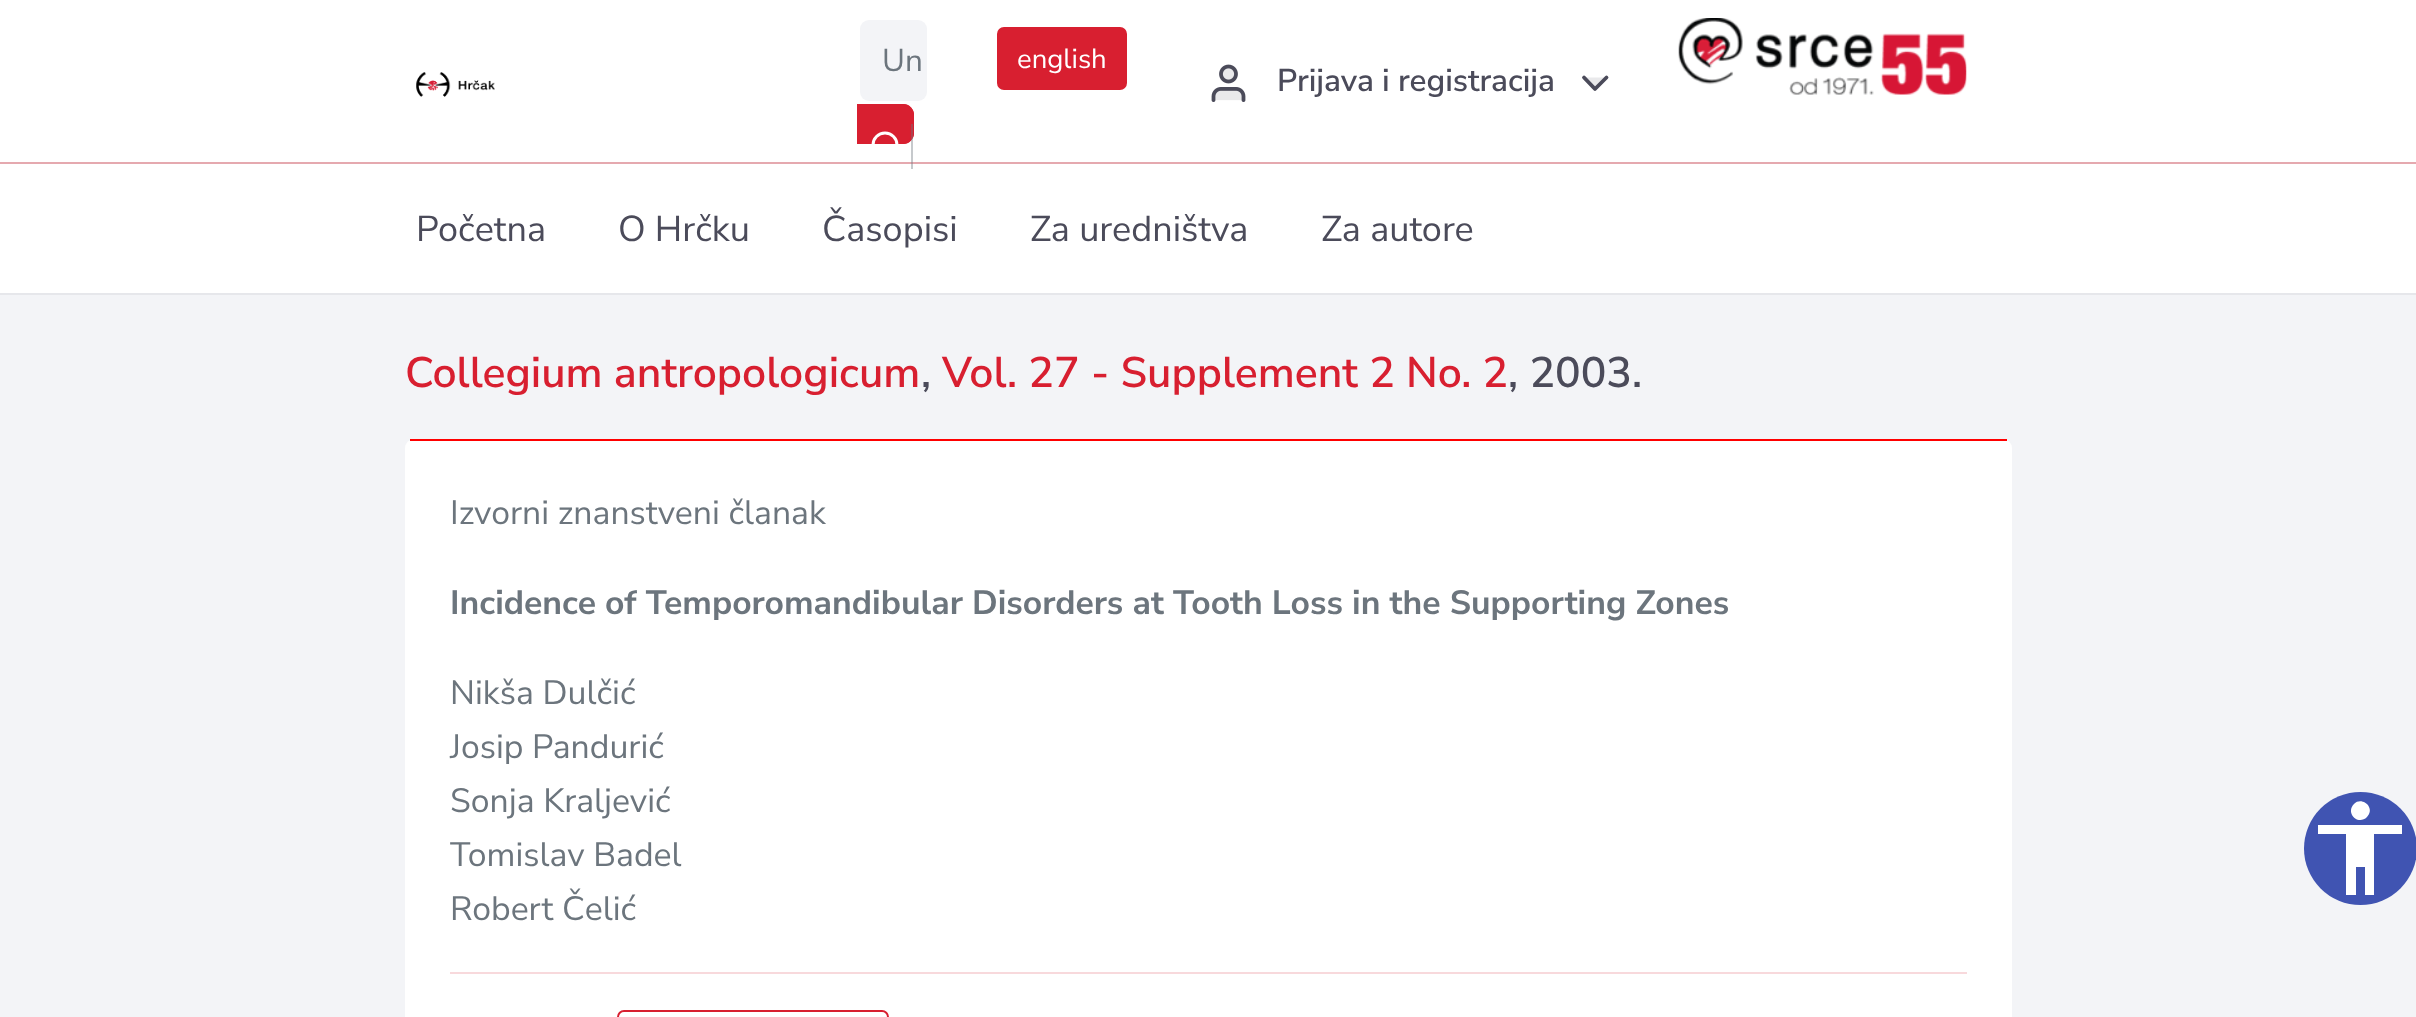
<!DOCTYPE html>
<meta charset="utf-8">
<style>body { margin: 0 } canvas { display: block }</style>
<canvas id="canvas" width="2416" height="1017"></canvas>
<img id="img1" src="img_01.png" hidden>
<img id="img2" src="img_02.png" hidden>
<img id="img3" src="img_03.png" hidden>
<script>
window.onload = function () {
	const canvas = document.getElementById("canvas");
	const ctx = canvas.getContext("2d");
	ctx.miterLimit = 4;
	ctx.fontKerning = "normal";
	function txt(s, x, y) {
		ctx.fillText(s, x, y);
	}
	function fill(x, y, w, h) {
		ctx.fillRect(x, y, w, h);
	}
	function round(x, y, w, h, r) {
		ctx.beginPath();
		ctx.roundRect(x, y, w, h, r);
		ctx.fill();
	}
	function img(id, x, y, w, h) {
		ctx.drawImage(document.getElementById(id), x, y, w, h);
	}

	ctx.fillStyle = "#F3F4F7";
	fill(0, 0, 2416, 1017);
	ctx.fillStyle = "rgba(75, 75, 90, 0.07)";
	ctx.filter = "blur(0.5px)";
	ctx.beginPath();
	ctx.rect(0, 164, 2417, 131);
	ctx.fill();
	ctx.filter = "none";
	ctx.fillStyle = "#FFFFFF";
	fill(0, 164, 2416, 129);
	ctx.fillStyle = "#F1B1B6";
	fill(0, 162, 2416, 2);
	ctx.fillStyle = "rgba(75, 75, 90, 0.07)";
	ctx.filter = "blur(0.5px)";
	ctx.beginPath();
	ctx.rect(0, 2, 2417, 162);
	ctx.fill();
	ctx.filter = "none";
	ctx.fillStyle = "#FFFFFF";
	fill(0, 0, 2416, 162);
	img("img1", 416, 72, 79, 25);
	ctx.fillStyle = "#F3F4F7";
	round(860, 20, 67, 81, 9);
	ctx.fillStyle = "#D81F30";
	ctx.beginPath();
	ctx.roundRect(857, 104, 57, 40, [0, 11, 11, 0]);
	ctx.fill();
	ctx.save();
	ctx.beginPath();
	ctx.rect(857, 0, 72, 182);
	ctx.clip();
	ctx.beginPath();
	ctx.roundRect(856, 105, 57, 38, [0, 10, 10, 0]);
	ctx.strokeStyle = "#D81F30";
	ctx.lineWidth = 2;
	ctx.stroke();
	ctx.restore();
	ctx.fillStyle = "rgba(112, 120, 128, 0.4)";
	fill(911, 124, 2, 45);
	ctx.beginPath();
	ctx.arc(885, 145, 12, 0, Math.PI * 2);
	ctx.strokeStyle = "#FFFFFF";
	ctx.lineWidth = 3;
	ctx.stroke();
	ctx.fillStyle = "#D81F30";
	ctx.beginPath();
	ctx.roundRect(998, 28, 128, 61, 6);
	ctx.fill();
	ctx.strokeStyle = "#D81F30";
	ctx.lineWidth = 2;
	ctx.stroke();
	img("img2", 1678, 18, 289, 77);
	img("img3", 1211, 64, 35, 38);
	ctx.fillStyle = "#E9E9EB";
	ctx.beginPath();
	ctx.moveTo(1584, 77.5);
	ctx.lineTo(1595, 89);
	ctx.lineTo(1606.5, 77.5);
	ctx.fill();
	ctx.strokeStyle = "#4B4B5A";
	ctx.lineWidth = 3.8;
	ctx.lineCap = "round";
	ctx.lineJoin = "round";
	ctx.stroke();
	ctx.fillStyle = "rgba(75, 75, 90, 0.07)";
	ctx.filter = "blur(0.5px)";
	ctx.beginPath();
	ctx.roundRect(405, 441, 1607, 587, 9);
	ctx.fill();
	ctx.filter = "none";
	ctx.fillStyle = "#FFFFFF";
	round(405, 439, 1607, 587, 9);
	ctx.fillStyle = "#FF0000";
	fill(410, 439, 1597, 2);
	ctx.fillStyle = "#F8D9DC";
	fill(450, 972, 1517, 2);
	ctx.beginPath();
	ctx.roundRect(618, 1011, 270, 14, 6);
	ctx.strokeStyle = "#D81F30";
	ctx.lineWidth = 2;
	ctx.lineJoin = "miter";
	ctx.stroke();
	ctx.fillStyle = "#4054B2";
	ctx.beginPath();
	ctx.arc(2360.5, 848.5, 56.5, 0, Math.PI * 2);
	ctx.fill();
	ctx.fillStyle = "#FFFFFF";
	ctx.beginPath();
	ctx.moveTo(2402, 834);
	ctx.lineTo(2374, 834);
	ctx.lineTo(2374, 895);
	ctx.lineTo(2365, 895);
	ctx.lineTo(2365, 867);
	ctx.lineTo(2356, 867);
	ctx.lineTo(2356, 895);
	ctx.lineTo(2346, 895);
	ctx.lineTo(2346, 834);
	ctx.lineTo(2318, 834);
	ctx.lineTo(2318, 825);
	ctx.lineTo(2402, 825);
	ctx.closePath();
	ctx.moveTo(2354, 804);
	ctx.bezierCurveTo(2362, 796, 2376, 808, 2367, 817);
	ctx.bezierCurveTo(2358, 826, 2345, 813, 2354, 804);
	ctx.closePath();
	ctx.fill();
	ctx.font = "31.5px Nunito Sans";
	ctx.fillStyle = "#6C757D";
	txt("Un", 882, 71);
	ctx.font = "27.5px Nunito Sans";
	ctx.fillStyle = "#FFFFFF";
	txt("english", 1017, 68);
	ctx.font = "600 31.5px Nunito Sans";
	ctx.fillStyle = "#4B4B5A";
	txt("Prijava i registracija", 1277, 91);
	ctx.font = "36px Nunito Sans";
	txt("Početna", 416, 241);
	txt("O Hrčku", 618, 241);
	txt("Časopisi", 822, 241);
	txt("Za uredništva", 1030, 241);
	txt("Za autore", 1321, 241);
	ctx.font = "600 42.75px Nunito Sans";
	ctx.fillStyle = "#D81F30";
	txt("Collegium antropologicum", 405, 387);
	ctx.fillStyle = "#4B4B5A";
	txt(",", 921, 387);
	ctx.fillStyle = "#D81F30";
	txt("Vol. 27 - Supplement 2 No. 2", 942, 387);
	ctx.fillStyle = "#4B4B5A";
	txt(", 2003.", 1508, 387);
	ctx.font = "33.75px Nunito Sans";
	ctx.fillStyle = "#6C757D";
	txt("Izvorni znanstveni članak", 450, 524);
	ctx.font = "bold 33.75px Nunito Sans";
	txt("Incidence of Temporomandibular Disorders at Tooth Loss in the Supporting Zones", 450, 614);
	ctx.font = "33.75px Nunito Sans";
	txt("Nikša Dulčić", 450, 704);
	txt("Josip Pandurić", 450, 758);
	txt("Sonja Kraljević", 450, 812);
	txt("Tomislav Badel", 450, 866);
	txt("Robert Čelić", 450, 920);
};
</script>
